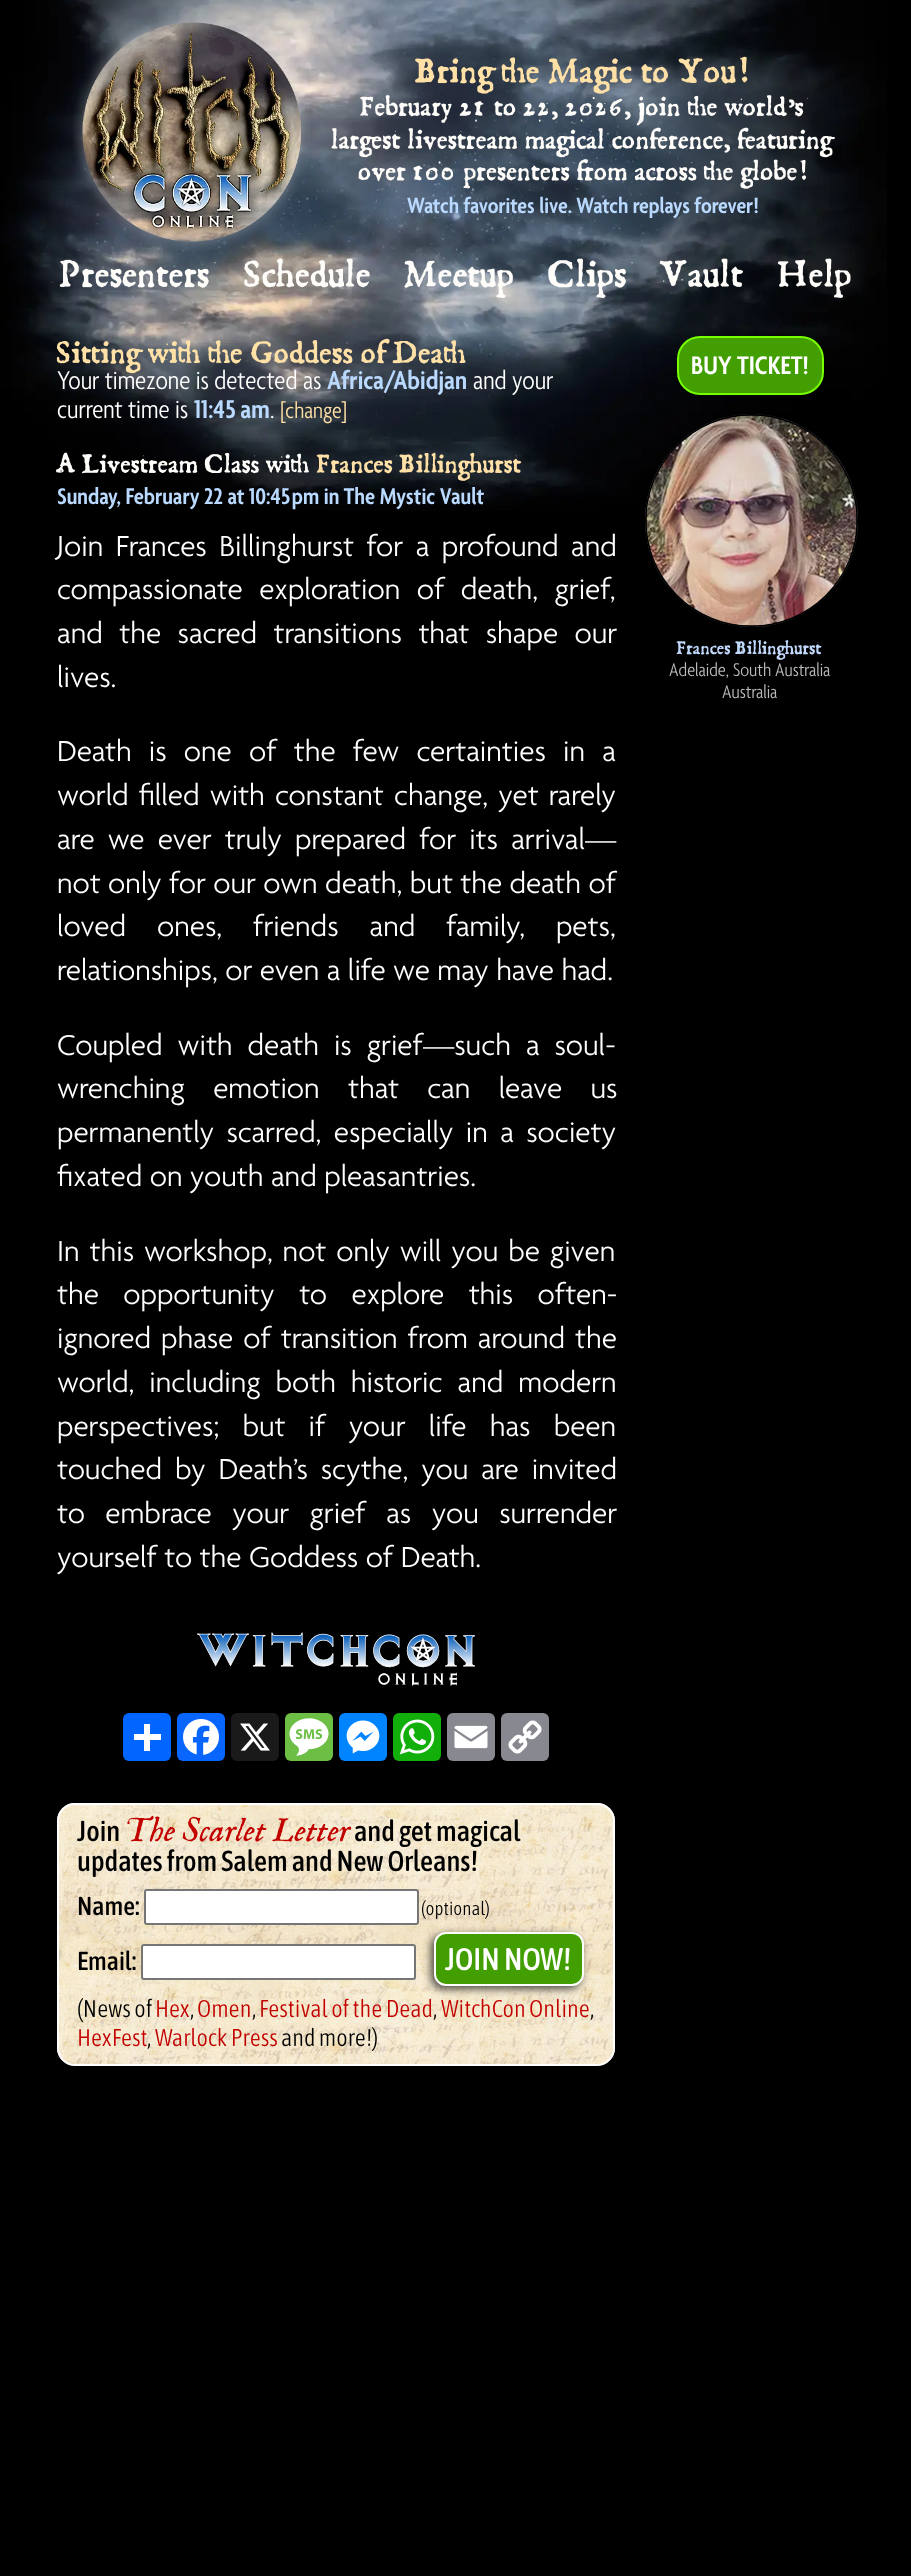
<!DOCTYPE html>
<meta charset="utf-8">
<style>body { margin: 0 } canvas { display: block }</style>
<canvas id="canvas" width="911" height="2576"></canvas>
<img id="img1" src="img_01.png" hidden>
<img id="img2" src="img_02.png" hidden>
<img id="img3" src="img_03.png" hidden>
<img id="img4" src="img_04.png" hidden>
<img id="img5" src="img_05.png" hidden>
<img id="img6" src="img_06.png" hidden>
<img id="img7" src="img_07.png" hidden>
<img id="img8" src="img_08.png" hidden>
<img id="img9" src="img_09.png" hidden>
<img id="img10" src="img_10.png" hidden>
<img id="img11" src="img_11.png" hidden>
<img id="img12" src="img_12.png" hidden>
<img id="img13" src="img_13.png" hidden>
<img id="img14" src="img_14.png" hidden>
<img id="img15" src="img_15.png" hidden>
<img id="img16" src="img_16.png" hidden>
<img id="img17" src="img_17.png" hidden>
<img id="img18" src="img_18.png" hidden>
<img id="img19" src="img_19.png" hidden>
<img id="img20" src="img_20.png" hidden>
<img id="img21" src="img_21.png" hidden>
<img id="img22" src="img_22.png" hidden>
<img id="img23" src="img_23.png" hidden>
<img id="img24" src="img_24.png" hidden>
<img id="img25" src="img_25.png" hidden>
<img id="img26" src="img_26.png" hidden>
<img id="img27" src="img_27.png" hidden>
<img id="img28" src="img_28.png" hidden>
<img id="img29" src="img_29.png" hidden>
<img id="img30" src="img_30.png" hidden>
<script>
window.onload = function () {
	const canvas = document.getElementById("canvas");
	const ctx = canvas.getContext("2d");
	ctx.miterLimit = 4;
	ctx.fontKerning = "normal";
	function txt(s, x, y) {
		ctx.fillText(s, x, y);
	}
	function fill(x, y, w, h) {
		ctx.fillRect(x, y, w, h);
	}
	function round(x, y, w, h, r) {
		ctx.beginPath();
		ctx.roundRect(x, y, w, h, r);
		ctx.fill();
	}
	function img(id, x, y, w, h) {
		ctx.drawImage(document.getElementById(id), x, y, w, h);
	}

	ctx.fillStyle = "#000000";
	fill(0, 0, 911, 2576);
	img("img1", 0, 0, 887, 511);
	img("img2", 73, 14, 237, 237);
	img("img3", 415, 56, 333, 38);
	img("img4", 360, 95, 124, 28);
	img("img5", 494, 101, 22, 15);
	img("img6", 523, 102, 25, 20);
	img("img7", 552, 95, 257, 31);
	img("img8", 331, 127, 504, 31);
	img("img9", 358, 159, 449, 30);
	img("img10", 59, 259, 157, 29);
	img("img11", 244, 258, 126, 30);
	img("img12", 404, 260, 109, 38);
	img("img13", 548, 258, 85, 40);
	img("img14", 659, 258, 85, 30);
	img("img15", 778, 258, 73, 40);
	img("img16", 56, 338, 410, 36);
	img("img17", 56, 452, 253, 22);
	img("img18", 316, 452, 206, 29);
	img("img19", 197, 1632, 278, 54);
	ctx.fillStyle = "#0166FF";
	round(123, 1713, 48, 48, 6);
	ctx.fillStyle = "#FFFFFF";
	fill(144, 1724, 6, 27);
	fill(134, 1734, 27, 6);
	ctx.fillStyle = "#0866FF";
	round(177, 1713, 48, 48, 6);
	img("img20", 183, 1719, 36, 36);
	ctx.fillStyle = "#1A1A1A";
	round(231, 1713, 48, 48, 6);
	img("img21", 240, 1723, 30, 28);
	ctx.fillStyle = "#6CBE45";
	round(285, 1713, 48, 48, 6);
	img("img22", 289, 1718, 40, 38);
	ctx.fillStyle = "#0084FF";
	round(339, 1713, 48, 48, 6);
	img("img23", 346, 1720, 34, 34);
	ctx.fillStyle = "#12AF0A";
	round(393, 1713, 48, 48, 6);
	img("img24", 399, 1719, 36, 36);
	ctx.fillStyle = "#888990";
	round(447, 1713, 48, 48, 6);
	img("img25", 454, 1725, 34, 24);
	round(501, 1713, 48, 48, 6);
	img("img26", 508, 1720, 34, 34);
	img("img27", 57, 1803, 558, 263);
	ctx.beginPath();
	ctx.roundRect(58, 1804, 556, 261, 17);
	ctx.strokeStyle = "#FFFFFF";
	ctx.lineWidth = 2;
	ctx.stroke();
	ctx.fillStyle = "#FFFFFF";
	ctx.beginPath();
	ctx.roundRect(145, 1890, 273, 34, 2);
	ctx.fill();
	ctx.strokeStyle = "#767676";
	ctx.stroke();
	ctx.beginPath();
	ctx.roundRect(142, 1945, 273, 34, 2);
	ctx.fill();
	ctx.stroke();
	ctx.fillStyle = "rgba(0, 0, 0, 0.7)";
	ctx.filter = "blur(4px)";
	ctx.beginPath();
	ctx.roundRect(431, 1935, 150, 54, 12);
	ctx.fill();
	ctx.filter = "none";
	ctx.fillStyle = "#439E02";
	ctx.beginPath();
	ctx.roundRect(435, 1933, 148, 52, 11);
	ctx.fill();
	ctx.strokeStyle = "#FFFFFF";
	ctx.stroke();
	ctx.beginPath();
	ctx.roundRect(678, 337, 145, 57, 22);
	ctx.fill();
	ctx.strokeStyle = "#76FF00";
	ctx.stroke();
	img("img28", 645, 414, 213, 213);
	ctx.beginPath();
	ctx.arc(751.5, 520.5, 105.5, 0, Math.PI * 2);
	ctx.strokeStyle = "#000000";
	ctx.stroke();
	img("img29", 646, 415, 211, 211);
	img("img30", 676, 640, 146, 20);
	ctx.font = "600 23.75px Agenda";
	ctx.fillStyle = "#BAD9FF";
	txt("Watch favorites live. Watch replays forever!", 407, 213);
	ctx.font = "300 28px Agenda";
	ctx.fillStyle = "#FFFFFF";
	txt("Your timezone is detected as", 57, 389);
	ctx.font = "600 28px Agenda";
	ctx.fillStyle = "#BAD9FF";
	txt("Africa/Abidjan", 327, 389);
	ctx.font = "300 28px Agenda";
	ctx.fillStyle = "#FFFFFF";
	txt("and your", 473, 389);
	txt("current time is", 57, 418);
	ctx.font = "600 28px Agenda";
	ctx.fillStyle = "#BAD9FF";
	txt("11:45 am", 194, 418);
	ctx.font = "300 28px Agenda";
	ctx.fillStyle = "#FFFFFF";
	txt(".", 270, 418);
	ctx.font = "300 24.5px Agenda";
	ctx.fillStyle = "#FFE1A7";
	txt("[change]", 280, 418);
	ctx.font = "600 24.6px Agenda";
	ctx.fillStyle = "#BAD9FF";
	txt("Sunday, February 22 at 10:45 pm in The Mystic Vault", 57, 504);
	ctx.wordSpacing = "5px";
	ctx.font = "300 31.25px 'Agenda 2'";
	ctx.fillStyle = "#FFFFFF";
	txt("Join Frances Billinghurst for a profound and", 57, 556);
	ctx.wordSpacing = "9px";
	txt("compassionate exploration of death, grief,", 57, 599);
	txt("and the sacred transitions that shape our", 57, 643);
	ctx.wordSpacing = "0px";
	txt("lives.", 57, 687);
	ctx.wordSpacing = "9.75px";
	txt("Death is one of the few certainties in a", 57, 761);
	ctx.wordSpacing = "2.75px";
	txt("world filled with constant change, yet rarely", 57, 805);
	ctx.wordSpacing = "5.75px";
	txt("are we ever truly prepared for its arrival—", 57, 849);
	ctx.wordSpacing = "0px";
	txt("not only for our own death, but the death of", 57, 893);
	ctx.wordSpacing = "23.5px";
	txt("loved ones, friends and family, pets,", 57, 936);
	ctx.wordSpacing = "0px";
	txt("relationships, or even a life we may have had.", 57, 980);
	ctx.wordSpacing = "7.5px";
	txt("Coupled with death is grief—such a soul-", 57, 1055);
	ctx.wordSpacing = "21px";
	txt("wrenching emotion that can leave us", 57, 1098);
	ctx.wordSpacing = "5px";
	txt("permanently scarred, especially in a society", 57, 1142);
	ctx.wordSpacing = "0px";
	txt("fixated on youth and pleasantries.", 57, 1186);
	ctx.wordSpacing = "2.5px";
	txt("In this workshop, not only will you be given", 57, 1261);
	ctx.wordSpacing = "17px";
	txt("the opportunity to explore this often-", 57, 1304);
	ctx.wordSpacing = "2.5px";
	txt("ignored phase of transition from around the", 57, 1348);
	ctx.wordSpacing = "7.5px";
	txt("world, including both historic and modern", 57, 1392);
	ctx.wordSpacing = "15.75px";
	txt("perspectives; but if your life has been", 57, 1436);
	ctx.wordSpacing = "5.5px";
	txt("touched by Death’s scythe, you are invited", 57, 1479);
	ctx.wordSpacing = "13px";
	txt("to embrace your grief as you surrender", 57, 1523);
	ctx.wordSpacing = "0px";
	txt("yourself to the Goddess of Death.", 57, 1567);
	ctx.font = "500 28.75px Asap Condensed";
	ctx.fillStyle = "#000000";
	txt("Join", 77, 1841);
	ctx.font = "italic 33.5px IM FELL English";
	ctx.fillStyle = "#C20000";
	txt("The Scarlet Letter", 124, 1841);
	ctx.font = "500 28.75px Asap Condensed";
	ctx.fillStyle = "#000000";
	txt("and get magical", 354, 1841);
	txt("updates from Salem and New Orleans!", 77, 1871);
	ctx.font = "500 26px Asap Condensed";
	txt("Name:", 77, 1915);
	ctx.font = "300 19px Asap Condensed";
	txt("(optional)", 421, 1915);
	ctx.font = "500 26px Asap Condensed";
	txt("Email:", 77, 1970);
	ctx.font = "500 31.25px Asap Condensed";
	ctx.fillStyle = "#FFFFFF";
	txt("JOIN NOW!", 445, 1970);
	ctx.font = "300 24.25px Asap Condensed";
	ctx.fillStyle = "#000000";
	txt("(News of", 77, 2017);
	ctx.fillStyle = "#C20000";
	txt("Hex", 155, 2017);
	ctx.fillStyle = "#000000";
	txt(",", 190, 2017);
	ctx.fillStyle = "#C20000";
	txt("Omen", 197, 2017);
	ctx.fillStyle = "#000000";
	txt(",", 252, 2017);
	ctx.fillStyle = "#C20000";
	txt("Festival of the Dead", 259, 2017);
	ctx.fillStyle = "#000000";
	txt(",", 433, 2017);
	ctx.fillStyle = "#C20000";
	txt("WitchCon Online", 441, 2017);
	ctx.fillStyle = "#000000";
	txt(",", 590, 2017);
	ctx.fillStyle = "#C20000";
	txt("HexFest", 77, 2046);
	ctx.fillStyle = "#000000";
	txt(",", 147, 2046);
	ctx.fillStyle = "#C20000";
	txt("Warlock Press", 155, 2046);
	ctx.fillStyle = "#000000";
	txt("and more!)", 281, 2046);
	ctx.font = "600 27.5px Agenda";
	ctx.fillStyle = "#FFFFFF";
	txt("BUY TICKET!", 691, 374);
	ctx.font = "300 20px Agenda";
	ctx.fillStyle = "#BBBBBB";
	txt("Adelaide, South Australia", 669, 676);
	txt("Australia", 722, 698);
};
</script>
